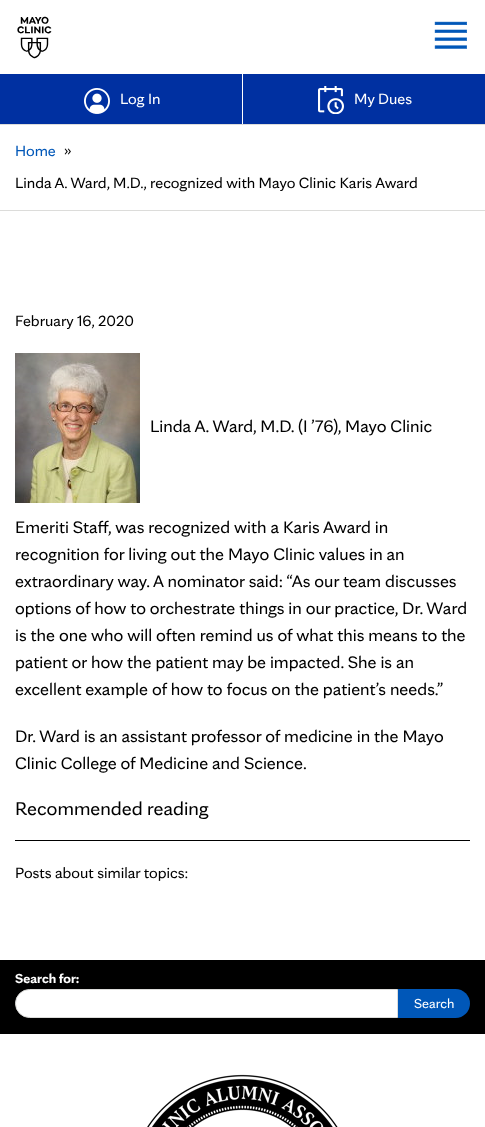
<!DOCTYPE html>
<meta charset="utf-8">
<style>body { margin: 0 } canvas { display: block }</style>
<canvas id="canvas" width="485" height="1127"></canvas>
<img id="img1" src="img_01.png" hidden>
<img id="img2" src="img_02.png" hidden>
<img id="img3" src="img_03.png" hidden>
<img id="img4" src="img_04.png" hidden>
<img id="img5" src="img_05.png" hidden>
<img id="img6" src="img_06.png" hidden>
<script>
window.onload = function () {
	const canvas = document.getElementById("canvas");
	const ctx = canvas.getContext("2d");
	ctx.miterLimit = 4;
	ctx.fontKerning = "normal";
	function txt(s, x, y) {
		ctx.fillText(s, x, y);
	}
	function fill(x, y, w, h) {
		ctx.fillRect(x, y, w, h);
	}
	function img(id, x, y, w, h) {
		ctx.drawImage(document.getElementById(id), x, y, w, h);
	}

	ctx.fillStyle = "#FFFFFF";
	fill(0, 0, 485, 1127);
	img("img1", 17, 16, 35, 43);
	img("img2", 434, 21, 33, 28);
	ctx.fillStyle = "#0030A1";
	fill(0, 74, 485, 50);
	ctx.fillStyle = "#FFFFFF";
	fill(242, 74, 1, 50);
	img("img3", 84, 88, 26, 26);
	img("img4", 318, 86, 26, 28);
	ctx.fillStyle = "#DCDCDA";
	fill(0, 124, 485, 1);
	fill(0, 210, 485, 1);
	img("img5", 15, 353, 125, 150);
	ctx.fillStyle = "#000000";
	fill(15, 840, 455, 1);
	fill(0, 960, 485, 74);
	ctx.fillStyle = "#FFFFFF";
	ctx.beginPath();
	ctx.roundRect(15.5, 989.5, 382, 28, [14, 0, 0, 14]);
	ctx.fill();
	ctx.strokeStyle = "#DCDCDA";
	ctx.stroke();
	ctx.fillStyle = "#0057B8";
	ctx.beginPath();
	ctx.roundRect(398, 989, 72, 29, [0, 14.5, 14.5, 0]);
	ctx.fill();
	img("img6", 147, 1074, 191, 53);
	ctx.font = "16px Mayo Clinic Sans";
	ctx.fillStyle = "#FFFFFF";
	txt("Log In", 120, 104);
	txt("My Dues", 354, 104);
	ctx.fillStyle = "#0057B8";
	txt("Home", 15, 156);
	ctx.font = "15px Mayo Clinic Sans";
	ctx.fillStyle = "#000000";
	txt("»", 64, 155);
	ctx.font = "16px Mayo Clinic Sans";
	txt("Linda A. Ward, M.D., recognized with Mayo Clinic Karis Award", 15, 188);
	txt("February 16, 2020", 15, 326);
	ctx.font = "18px Mayo Clinic Sans";
	txt("Linda A. Ward, M.D. (I ’76), Mayo Clinic", 150, 432);
	txt("Emeriti Staff, was recognized with a Karis Award in", 15, 533);
	txt("recognition for living out the Mayo Clinic values in an", 15, 560);
	txt("extraordinary way. A nominator said: “As our team discusses", 15, 587);
	txt("options of how to orchestrate things in our practice, Dr. Ward", 15, 614);
	txt("is the one who will often remind us of what this means to the", 15, 641);
	txt("patient or how the patient may be impacted. She is an", 15, 668);
	txt("excellent example of how to focus on the patient’s needs.”", 15, 695);
	txt("Dr. Ward is an assistant professor of medicine in the Mayo", 15, 742);
	txt("Clinic College of Medicine and Science.", 15, 769);
	ctx.font = "20px Mayo Clinic Sans";
	txt("Recommended reading", 15, 815);
	ctx.font = "16px Mayo Clinic Sans";
	txt("Posts about similar topics:", 15, 878);
	ctx.font = "bold 14px Mayo Clinic Sans";
	ctx.fillStyle = "#FFFFFF";
	txt("Search for:", 15, 983);
	ctx.font = "14px Mayo Clinic Sans";
	txt("Search", 414, 1008);
};
</script>
